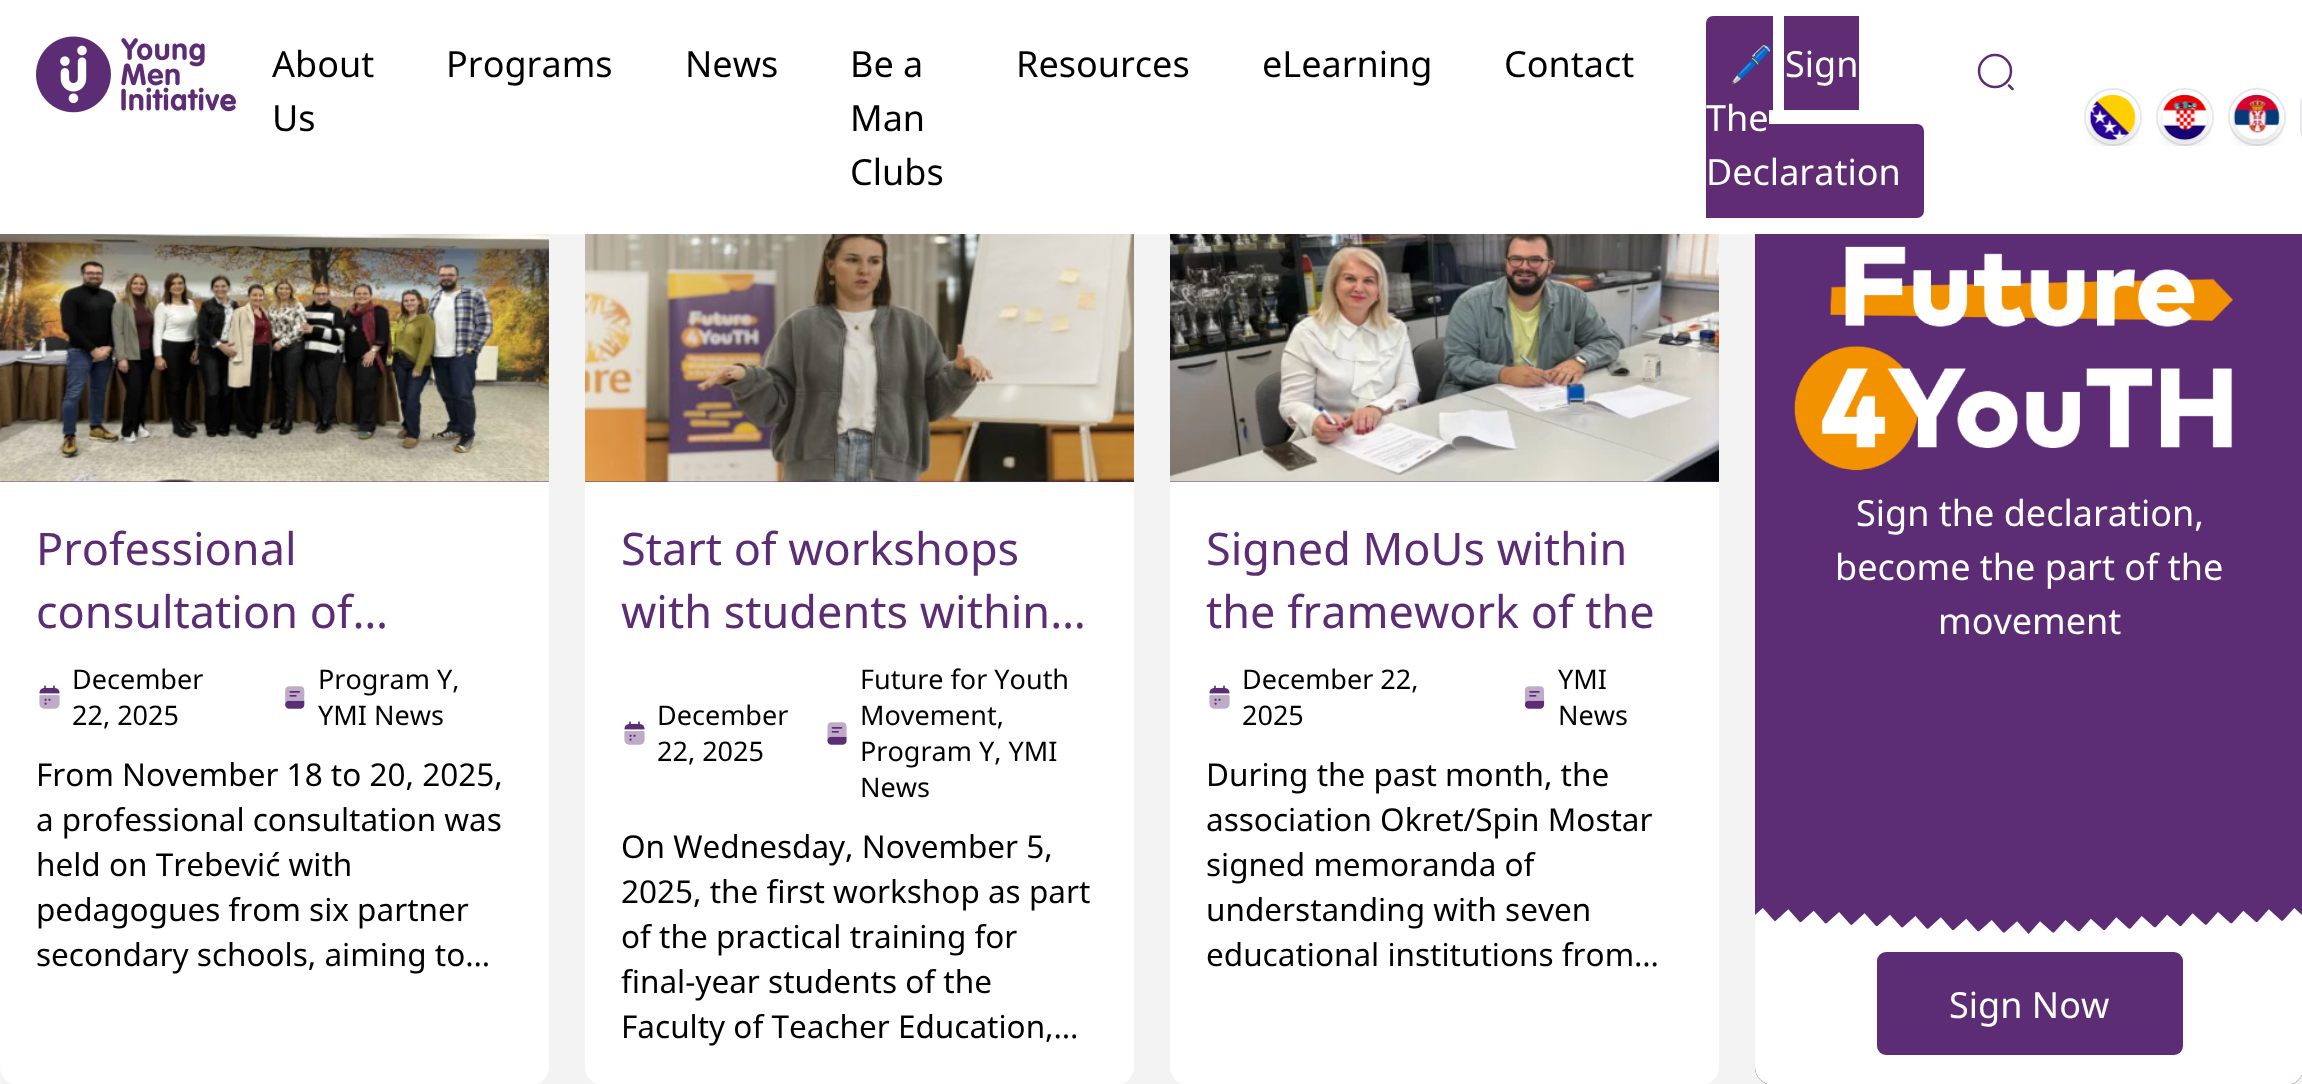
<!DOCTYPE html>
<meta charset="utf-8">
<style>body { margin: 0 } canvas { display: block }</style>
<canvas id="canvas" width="2302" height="1084"></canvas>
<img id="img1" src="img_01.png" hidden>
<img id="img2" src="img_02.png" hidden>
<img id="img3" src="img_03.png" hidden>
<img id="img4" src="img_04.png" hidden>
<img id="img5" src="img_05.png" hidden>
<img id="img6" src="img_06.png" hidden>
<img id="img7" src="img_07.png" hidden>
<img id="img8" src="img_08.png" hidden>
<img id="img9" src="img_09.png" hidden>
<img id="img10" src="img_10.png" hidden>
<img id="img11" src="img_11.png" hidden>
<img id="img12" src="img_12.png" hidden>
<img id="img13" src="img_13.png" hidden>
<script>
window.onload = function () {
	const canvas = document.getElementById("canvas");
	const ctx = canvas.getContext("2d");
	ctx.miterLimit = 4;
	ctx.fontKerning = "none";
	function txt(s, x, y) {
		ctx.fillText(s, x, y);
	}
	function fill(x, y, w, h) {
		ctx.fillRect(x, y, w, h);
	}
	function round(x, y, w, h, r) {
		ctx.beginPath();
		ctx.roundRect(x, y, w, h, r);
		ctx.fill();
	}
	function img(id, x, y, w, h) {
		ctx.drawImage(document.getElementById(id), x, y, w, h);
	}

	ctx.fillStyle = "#F3F3F3";
	fill(0, 0, 2302, 1084);
	ctx.fillStyle = "#FFFFFF";
	round(0, 173, 549, 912, 18);
	round(585, 173, 549, 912, 18);
	round(1170, 173, 549, 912, 18);
	ctx.fillStyle = "#5C2D74";
	round(1755, 173, 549, 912, 18);
	ctx.fillStyle = "#FFFFFF";
	fill(0, 0, 2302, 234);
	img("img1", 36, 36, 200, 77);
	ctx.fillStyle = "#602C74";
	ctx.beginPath();
	ctx.roundRect(1706, 16, 67, 94, [7, 0, 0, 7]);
	ctx.fill();
	fill(1784, 16, 75, 94);
	fill(1706, 103, 63, 21);
	ctx.beginPath();
	ctx.roundRect(1706, 124, 218, 94, [0, 7, 7, 0]);
	ctx.fill();
	ctx.beginPath();
	ctx.moveTo(1995, 87);
	ctx.bezierCurveTo(2004, 87, 2011, 80, 2011, 71);
	ctx.bezierCurveTo(2011, 62.5, 2004, 55, 1995, 55);
	ctx.bezierCurveTo(1986, 55, 1979, 62.5, 1979, 71);
	ctx.bezierCurveTo(1979, 80, 1986, 87, 1995, 87);
	ctx.closePath();
	ctx.moveTo(2012.5, 89);
	ctx.lineTo(2009, 85.5);
	ctx.strokeStyle = "#5C2D74";
	ctx.lineWidth = 2.5;
	ctx.lineCap = "round";
	ctx.lineJoin = "round";
	ctx.stroke();
	ctx.beginPath();
	ctx.arc(2113, 117, 28, 0, Math.PI * 2);
	ctx.strokeStyle = "#E5E7EB";
	ctx.lineWidth = 2;
	ctx.stroke();
	ctx.beginPath();
	ctx.arc(2113, 117, 24.5, 0, Math.PI * 2);
	ctx.strokeStyle = "#FFFFFF";
	ctx.lineWidth = 5;
	ctx.stroke();
	img("img2", 2087, 94, 52, 52);
	ctx.beginPath();
	ctx.arc(2185, 117, 28, 0, Math.PI * 2);
	ctx.strokeStyle = "#E5E7EB";
	ctx.lineWidth = 2;
	ctx.stroke();
	ctx.beginPath();
	ctx.arc(2185, 117, 24.5, 0, Math.PI * 2);
	ctx.strokeStyle = "#FFFFFF";
	ctx.lineWidth = 5;
	ctx.stroke();
	img("img3", 2159, 94, 52, 52);
	ctx.beginPath();
	ctx.arc(2257, 117, 28, 0, Math.PI * 2);
	ctx.strokeStyle = "#E5E7EB";
	ctx.lineWidth = 2;
	ctx.stroke();
	ctx.beginPath();
	ctx.arc(2257, 117, 24.5, 0, Math.PI * 2);
	ctx.strokeStyle = "#FFFFFF";
	ctx.lineWidth = 5;
	ctx.stroke();
	img("img4", 2231, 94, 52, 52);
	ctx.beginPath();
	ctx.roundRect(2301, 89, 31, 56, 28);
	ctx.strokeStyle = "#E5E7EB";
	ctx.lineWidth = 2;
	ctx.lineJoin = "miter";
	ctx.stroke();
	ctx.fillStyle = "#5C2D74";
	fill(0, 481, 549, 1);
	img("img5", 0, 234, 549, 248);
	img("img6", 39, 685, 21, 24);
	img("img7", 285, 686, 20, 23);
	fill(585, 481, 549, 1);
	img("img8", 585, 234, 549, 248);
	img("img6", 624, 721, 21, 24);
	img("img9", 827, 722, 20, 23);
	fill(1170, 481, 549, 1);
	img("img10", 1170, 234, 549, 248);
	img("img6", 1209, 685, 21, 24);
	img("img11", 1524, 686, 21, 23);
	img("img12", 1794, 246, 439, 225);
	img("img13", 1755, 908, 547, 176);
	round(1877, 952, 306, 103, 9);
	ctx.font = "36px Noto Sans";
	ctx.fillStyle = "#000000";
	txt("About", 272, 77);
	txt("Us", 272, 131);
	txt("Programs", 446, 77);
	txt("News", 685, 77);
	txt("Be a", 850, 77);
	txt("Man", 850, 131);
	txt("Clubs", 850, 185);
	txt("Resources", 1016, 77);
	txt("eLearning", 1262, 77);
	txt("Contact", 1504, 77);
	ctx.font = "36px Noto Color Emoji";
	ctx.fillStyle = "#FFFFFF";
	txt("🖊️", 1729, 77);
	ctx.font = "36px Noto Sans";
	txt("Sign", 1785, 77);
	txt("The", 1706, 131);
	txt("Declaration", 1706, 185);
	ctx.font = "45px Noto Sans";
	ctx.fillStyle = "#5C2D74";
	txt("Professional", 36, 565);
	txt("consultation of…", 36, 628);
	ctx.font = "27px Noto Sans";
	ctx.fillStyle = "#000000";
	txt("December", 72, 689);
	txt("22, 2025", 72, 725);
	txt("Program Y,", 318, 689);
	txt("YMI News", 318, 725);
	ctx.font = "31.5px Noto Sans";
	txt("From November 18 to 20, 2025,", 36, 786);
	txt("a professional consultation was", 36, 831);
	txt("held on Trebević with", 36, 876);
	txt("pedagogues from six partner", 36, 921);
	txt("secondary schools, aiming to…", 36, 966);
	ctx.font = "45px Noto Sans";
	ctx.fillStyle = "#5C2D74";
	txt("Start of workshops", 621, 565);
	txt("with students within…", 621, 628);
	ctx.font = "27px Noto Sans";
	ctx.fillStyle = "#000000";
	txt("December", 657, 725);
	txt("22, 2025", 657, 761);
	txt("Future for Youth", 860, 689);
	txt("Movement,", 860, 725);
	txt("Program Y, YMI", 860, 761);
	txt("News", 860, 797);
	ctx.font = "31.5px Noto Sans";
	txt("On Wednesday, November 5,", 621, 858);
	txt("2025, the first workshop as part", 621, 903);
	txt("of the practical training for", 621, 948);
	txt("final-year students of the", 621, 993);
	txt("Faculty of Teacher Education,…", 621, 1038);
	ctx.font = "45px Noto Sans";
	ctx.fillStyle = "#5C2D74";
	txt("Signed MoUs within", 1206, 565);
	txt("the framework of the", 1206, 628);
	ctx.font = "27px Noto Sans";
	ctx.fillStyle = "#000000";
	txt("December 22,", 1242, 689);
	txt("2025", 1242, 725);
	txt("YMI", 1558, 689);
	txt("News", 1558, 725);
	ctx.font = "31.5px Noto Sans";
	txt("During the past month, the", 1206, 786);
	txt("association Okret/Spin Mostar", 1206, 831);
	txt("signed memoranda of", 1206, 876);
	txt("understanding with seven", 1206, 921);
	txt("educational institutions from…", 1206, 966);
	ctx.font = "36px Noto Sans";
	ctx.fillStyle = "#FFFFFF";
	txt("Sign the declaration,", 1856, 526);
	txt("become the part of the", 1835, 580);
	txt("movement", 1938, 634);
	txt("Sign Now", 1949, 1018);
};
</script>
